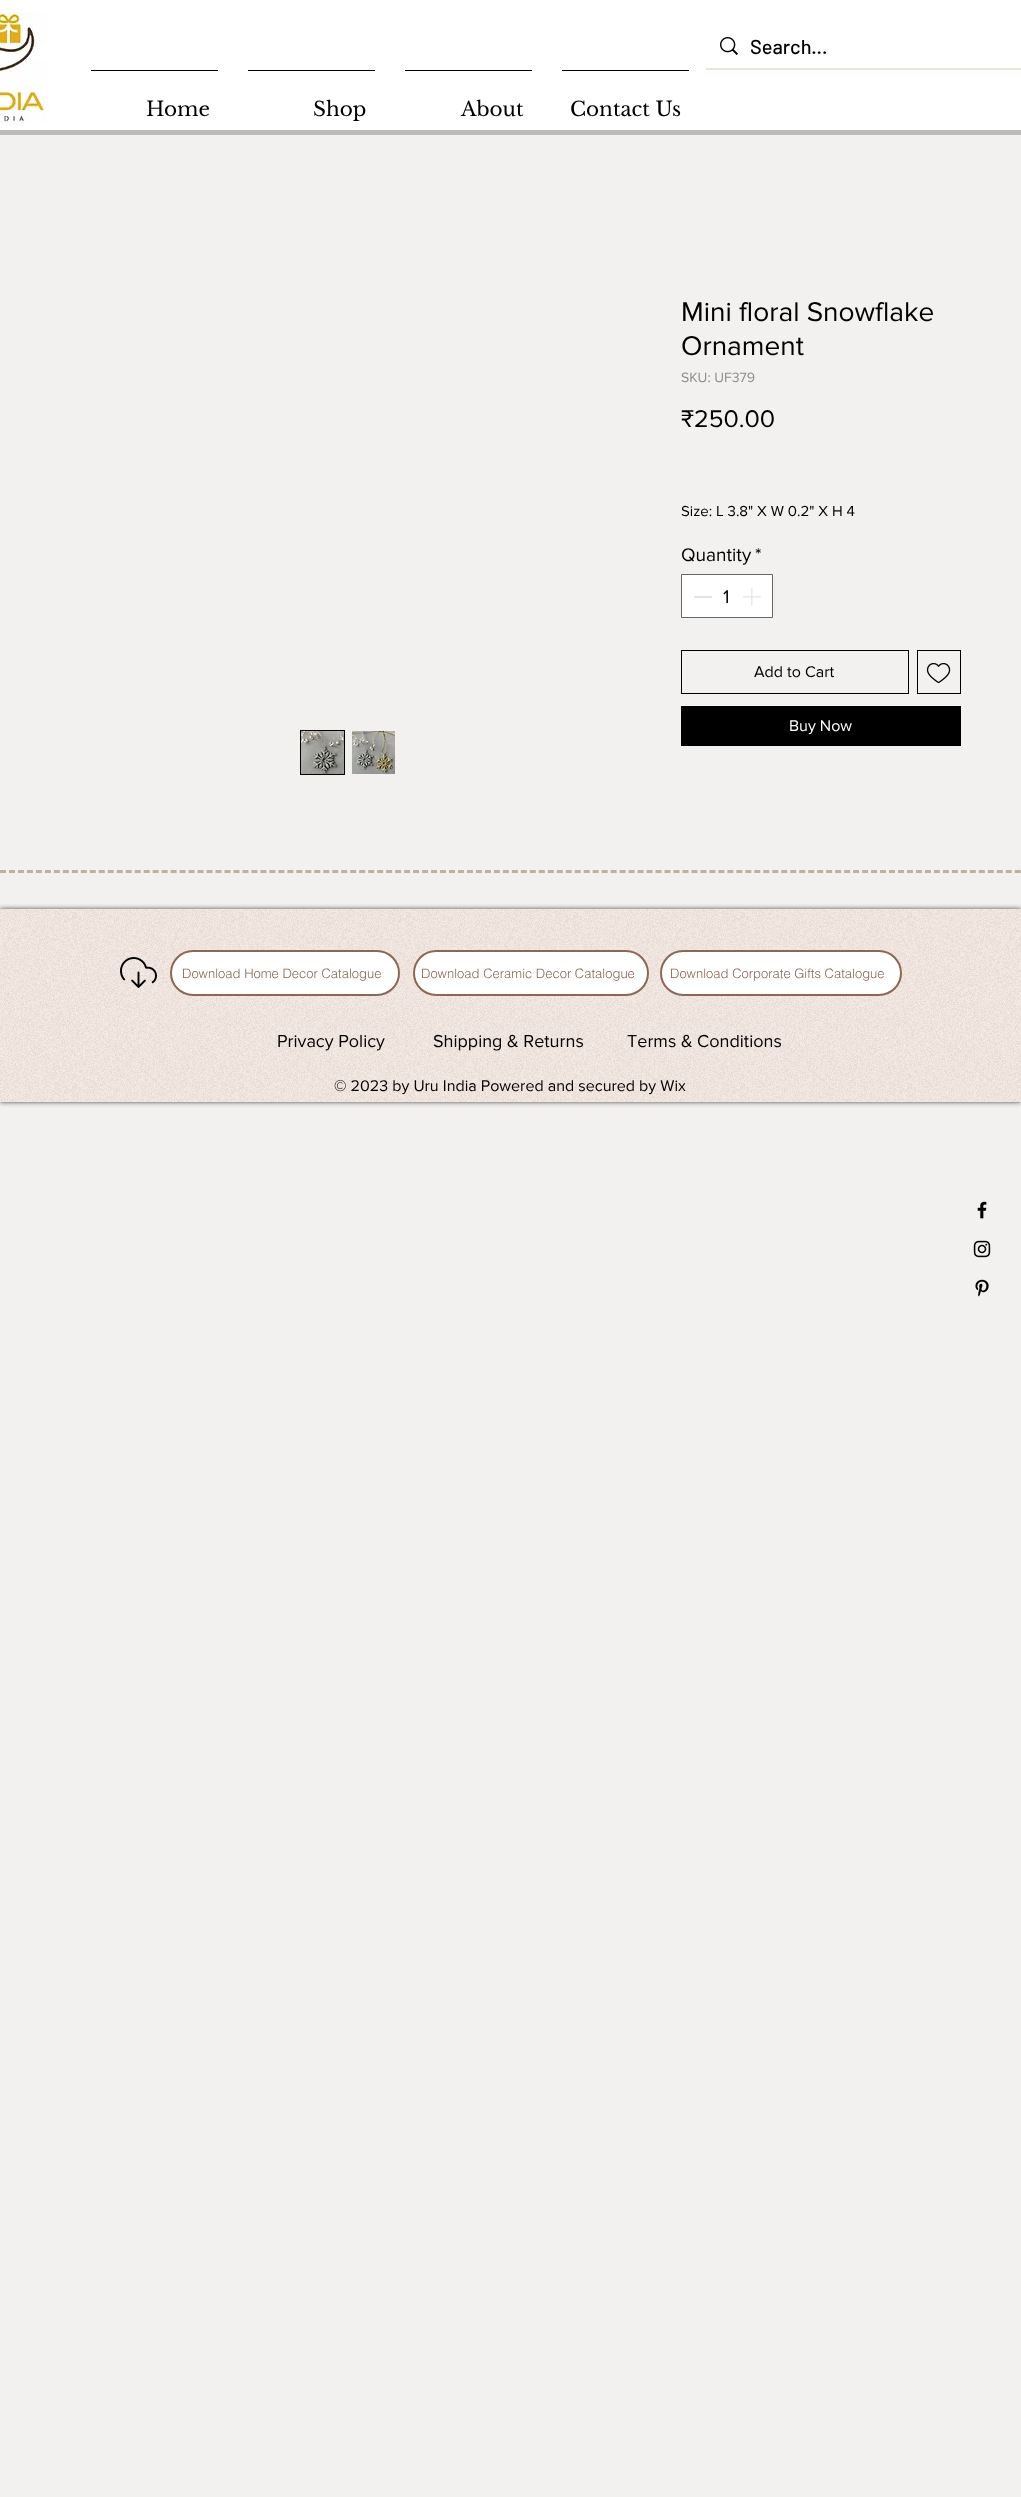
<!DOCTYPE html>
<meta charset="utf-8">
<style>body { margin: 0 } canvas { display: block }</style>
<canvas id="canvas" width="1021" height="2497"></canvas>
<img id="img1" src="img_01.png" hidden>
<img id="img2" src="img_02.png" hidden>
<img id="img3" src="img_03.png" hidden>
<img id="img4" src="img_04.png" hidden>
<img id="img5" src="img_05.png" hidden>
<img id="img6" src="img_06.png" hidden>
<img id="img7" src="img_07.png" hidden>
<img id="img8" src="img_08.png" hidden>
<img id="img9" src="img_09.png" hidden>
<img id="img10" src="img_10.png" hidden>
<img id="img11" src="img_11.png" hidden>
<script>
window.onload = function () {
	const canvas = document.getElementById("canvas");
	const ctx = canvas.getContext("2d");
	ctx.miterLimit = 4;
	ctx.fontKerning = "normal";
	function txt(s, x, y) {
		ctx.fillText(s, x, y);
	}
	function fill(x, y, w, h) {
		ctx.fillRect(x, y, w, h);
	}
	function img(id, x, y, w, h) {
		ctx.drawImage(document.getElementById(id), x, y, w, h);
	}

	ctx.fillStyle = "#F2F1F0";
	fill(0, 0, 1021, 2497);
	ctx.fillStyle = "#FFFFFF";
	fill(0, 0, 1021, 130);
	ctx.fillStyle = "#BDBBB9";
	fill(0, 130, 1021, 5);
	img("img1", 0, 12, 49, 112);
	ctx.fillStyle = "#EBE5D6";
	fill(706, 68, 315, 2);
	img("img2", 720, 37, 18, 18);
	ctx.fillStyle = "#000000";
	fill(91, 70, 127, 1);
	fill(248, 70, 127, 1);
	fill(405, 70, 127, 1);
	fill(562, 70, 127, 1);
	ctx.fillStyle = "#FFFFFF";
	ctx.beginPath();
	ctx.rect(681.5, 574.5, 91, 43);
	ctx.fill();
	ctx.strokeStyle = "#666666";
	ctx.stroke();
	ctx.fillStyle = "#E3E3E3";
	fill(694, 596, 18, 2);
	img("img3", 743, 588, 18, 18);
	ctx.strokeStyle = "#000000";
	ctx.strokeRect(681.5, 650.5, 227, 43);
	ctx.strokeRect(917.5, 650.5, 43, 43);
	img("img4", 926, 663, 25, 20);
	ctx.fillStyle = "#000000";
	fill(681, 706, 280, 40);
	ctx.strokeRect(300.5, 730.5, 44, 44);
	img("img5", 301, 731, 43, 43);
	img("img6", 352, 731, 43, 43);
	ctx.beginPath();
	ctx.moveTo(0, 871.5);
	ctx.lineTo(1021, 871.5);
	ctx.strokeStyle = "#BEB09C";
	ctx.lineWidth = 3;
	ctx.setLineDash([6, 2.98]);
	ctx.stroke();
	ctx.fillStyle = "rgba(0, 0, 0, 0.7)";
	ctx.filter = "blur(2.5px)";
	ctx.beginPath();
	ctx.rect(0, 909, 1021, 193);
	ctx.fill();
	ctx.filter = "none";
	ctx.fillStyle = "#F6EBE4";
	fill(0, 909, 1021, 193);
	img("img7", 0, 909, 1021, 193);
	img("img8", 120, 957, 37, 31);
	ctx.fillStyle = "#FFFFFF";
	ctx.beginPath();
	ctx.roundRect(171, 951, 228, 44, 22);
	ctx.fill();
	ctx.strokeStyle = "#8B6755";
	ctx.lineWidth = 2;
	ctx.setLineDash([]);
	ctx.stroke();
	ctx.beginPath();
	ctx.roundRect(414, 951, 234, 44, 22);
	ctx.fill();
	ctx.stroke();
	ctx.beginPath();
	ctx.roundRect(661, 951, 240, 44, 22);
	ctx.fill();
	ctx.stroke();
	img("img9", 977, 1201, 10, 18);
	img("img10", 973, 1240, 18, 18);
	img("img11", 975, 1279, 14, 18);
	ctx.font = "500 20px Barlow";
	ctx.fillStyle = "#000000";
	txt("Search...", 750, 54);
	ctx.font = "20px Libre Baskerville";
	txt("Home", 146, 116);
	txt("Shop", 313, 116);
	txt("About", 461, 116);
	txt("Contact Us", 570, 116);
	ctx.font = "28px 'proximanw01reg'";
	txt("Mini floral Snowflake", 681, 321);
	txt("Ornament", 681, 355);
	ctx.font = "14px 'proximanw01reg'";
	ctx.fillStyle = "#8E8C8B";
	txt("SKU: UF379", 681, 382);
	ctx.font = "25px 'proximanw01reg'";
	ctx.fillStyle = "#000000";
	txt("₹250.00", 681, 427);
	ctx.font = "15px 'proximanw01reg'";
	txt("Size: L 3.8\" X W 0.2\" X H 4", 681, 516);
	ctx.font = "19px 'proximanw01reg'";
	txt("Quantity", 681, 561);
	txt("*", 755, 561);
	txt("1", 723, 603);
	ctx.font = "16px 'proximanw01reg'";
	txt("Add to Cart", 754, 677);
	ctx.fillStyle = "#FFFFFF";
	txt("Buy Now", 789, 731);
	ctx.font = "300 13px helvetica";
	ctx.fillStyle = "#8B6755";
	txt("Download Home Decor Catalogue", 182, 978);
	txt("Download Ceramic Decor Catalogue", 421, 978);
	txt("Download Corporate Gifts Catalogue", 670, 978);
	ctx.font = "18px 'proximanw01reg'";
	ctx.fillStyle = "#000000";
	txt("Privacy Policy", 277, 1047);
	txt("Shipping & Returns", 433, 1047);
	txt("Terms & Conditions", 627, 1047);
	ctx.font = "16px 'proximanw01reg'";
	txt("© 2023 by Uru India Powered and secured by Wix", 334, 1091);
};
</script>
